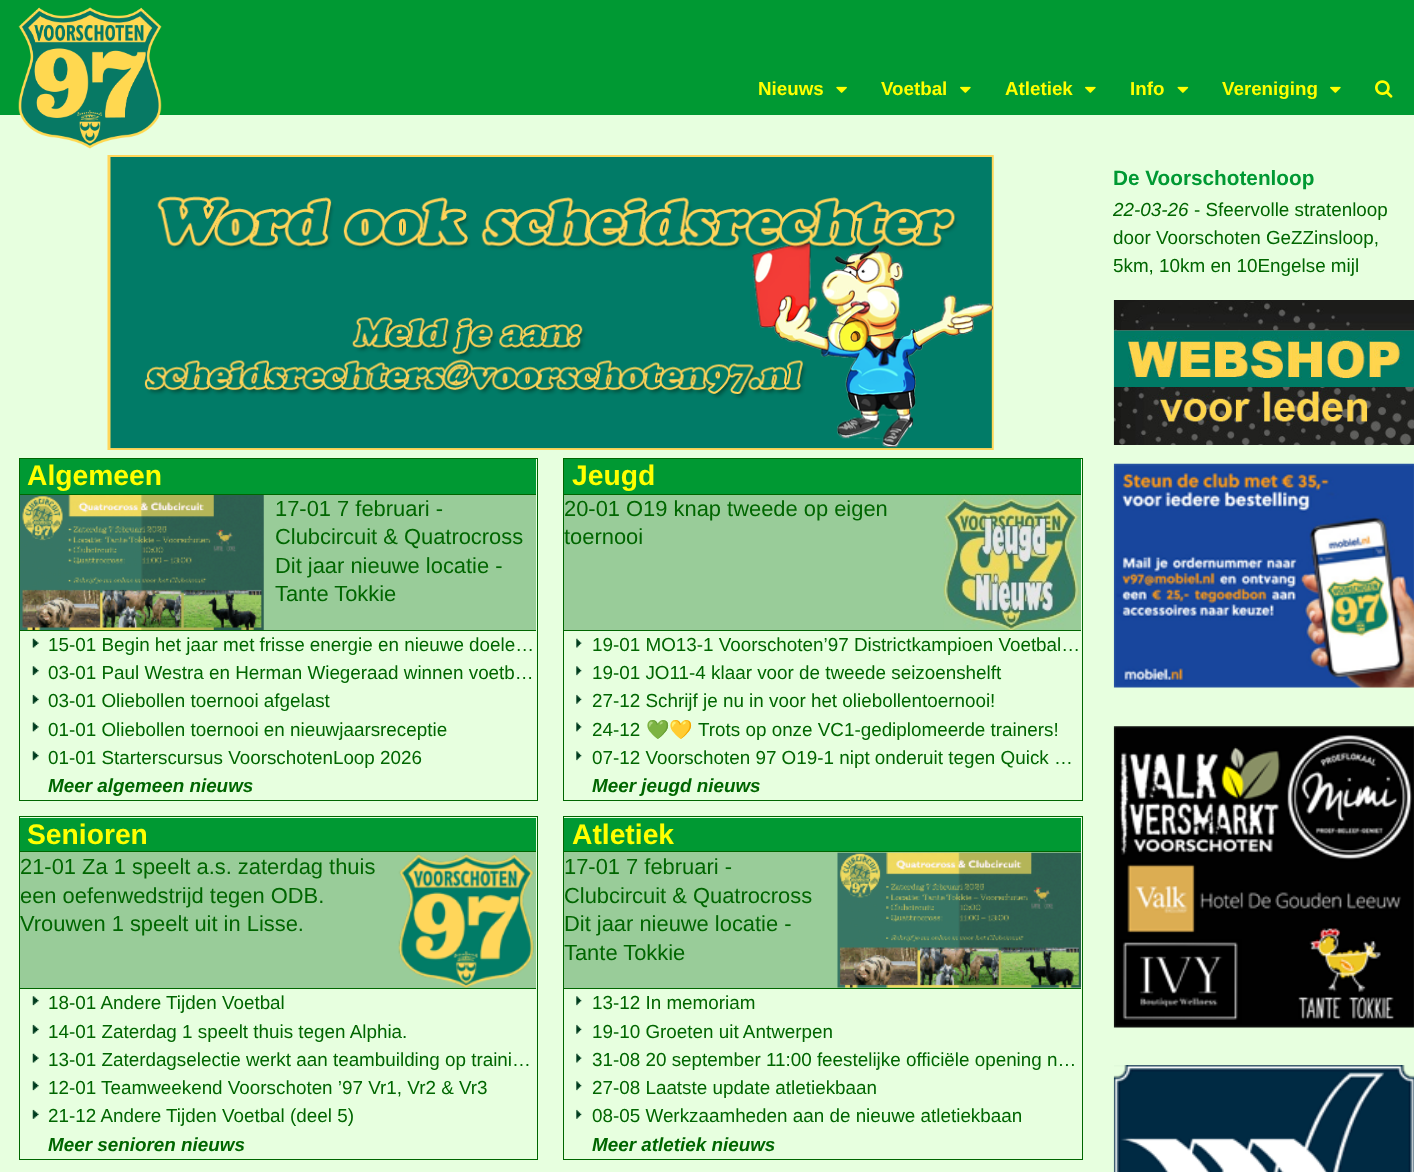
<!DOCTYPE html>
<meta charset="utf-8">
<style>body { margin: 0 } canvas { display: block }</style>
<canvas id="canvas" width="1414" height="1172"></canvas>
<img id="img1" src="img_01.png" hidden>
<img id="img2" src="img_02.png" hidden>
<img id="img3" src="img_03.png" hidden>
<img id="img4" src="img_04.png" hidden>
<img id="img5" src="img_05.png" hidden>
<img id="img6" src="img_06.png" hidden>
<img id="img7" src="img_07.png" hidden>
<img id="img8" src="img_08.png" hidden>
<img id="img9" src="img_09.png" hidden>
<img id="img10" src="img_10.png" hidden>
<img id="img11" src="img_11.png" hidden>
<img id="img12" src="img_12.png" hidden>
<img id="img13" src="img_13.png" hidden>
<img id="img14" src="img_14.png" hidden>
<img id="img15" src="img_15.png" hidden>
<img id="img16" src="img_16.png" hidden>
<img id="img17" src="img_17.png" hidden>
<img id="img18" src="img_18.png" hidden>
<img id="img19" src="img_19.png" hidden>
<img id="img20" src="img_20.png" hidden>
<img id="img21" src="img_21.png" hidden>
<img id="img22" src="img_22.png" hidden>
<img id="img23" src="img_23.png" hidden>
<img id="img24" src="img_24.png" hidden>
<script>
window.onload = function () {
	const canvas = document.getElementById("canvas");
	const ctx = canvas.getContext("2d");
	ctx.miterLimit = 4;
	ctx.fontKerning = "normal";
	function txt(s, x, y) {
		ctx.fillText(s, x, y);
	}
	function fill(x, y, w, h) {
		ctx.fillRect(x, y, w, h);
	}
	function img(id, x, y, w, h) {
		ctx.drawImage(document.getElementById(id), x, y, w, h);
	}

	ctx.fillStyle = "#E7FFDF";
	fill(0, 0, 1414, 1172);
	ctx.fillStyle = "#009933";
	fill(0, 0, 1414, 115);
	img("img1", 18, 7, 144, 142);
	img("img2", 836, 86, 11, 7);
	img("img3", 960, 86, 11, 7);
	img("img3", 1085, 86, 11, 7);
	img("img4", 1177, 86, 12, 7);
	img("img3", 1330, 86, 11, 7);
	img("img5", 1375, 80, 18, 18);
	img("img6", 1113, 300, 301, 145);
	img("img7", 1113, 463, 301, 225);
	img("img8", 1113, 726, 301, 302);
	img("img9", 1113, 1065, 301, 107);
	img("img10", 107, 155, 887, 295);
	ctx.strokeStyle = "#006600";
	ctx.strokeRect(19.5, 458.5, 518, 342);
	fill(20, 459, 516, 35);
	ctx.fillStyle = "#99CC99";
	fill(263, 495, 273, 135);
	ctx.fillStyle = "#006600";
	fill(20, 494, 516, 1);
	fill(20, 630, 516, 1);
	img("img11", 20, 495, 244, 135);
	img("img12", 32, 638, 7, 10);
	img("img13", 32, 666, 7, 10);
	img("img14", 32, 694, 7, 10);
	img("img15", 32, 722, 7, 10);
	img("img13", 32, 751, 7, 10);
	ctx.strokeRect(563.5, 458.5, 519, 342);
	ctx.fillStyle = "#009933";
	fill(564, 459, 517, 35);
	ctx.fillStyle = "#99CC99";
	fill(564, 495, 380, 135);
	ctx.fillStyle = "#006600";
	fill(564, 494, 517, 1);
	fill(564, 630, 517, 1);
	img("img16", 943, 495, 138, 135);
	img("img17", 576, 638, 6, 10);
	img("img18", 576, 666, 6, 10);
	img("img19", 576, 694, 6, 10);
	img("img20", 576, 722, 6, 10);
	img("img18", 576, 751, 6, 10);
	ctx.strokeRect(19.5, 816.5, 518, 343);
	ctx.fillStyle = "#009933";
	fill(20, 818, 516, 33);
	ctx.fillStyle = "#99CC99";
	fill(20, 852, 516, 136);
	ctx.fillStyle = "#006600";
	fill(20, 851, 516, 1);
	fill(20, 988, 516, 1);
	img("img21", 398, 853, 136, 135);
	img("img13", 32, 996, 7, 10);
	img("img22", 32, 1024, 7, 10);
	img("img12", 32, 1053, 7, 10);
	img("img13", 32, 1081, 7, 10);
	img("img14", 32, 1109, 7, 10);
	ctx.strokeRect(563.5, 816.5, 519, 343);
	ctx.fillStyle = "#009933";
	fill(564, 818, 517, 33);
	ctx.fillStyle = "#99CC99";
	fill(564, 852, 517, 136);
	ctx.fillStyle = "#006600";
	fill(564, 851, 517, 1);
	fill(564, 988, 517, 1);
	img("img23", 837, 852, 244, 136);
	img("img18", 576, 996, 6, 10);
	img("img24", 576, 1024, 6, 10);
	img("img17", 576, 1053, 6, 10);
	img("img18", 576, 1081, 6, 10);
	img("img19", 576, 1109, 6, 10);
	ctx.font = "bold 18.75px Liberation Sans";
	ctx.fillStyle = "#FFFF00";
	txt("Nieuws", 758, 95);
	txt("Voetbal", 881, 95);
	txt("Atletiek", 1005, 95);
	txt("Info", 1130, 95);
	txt("Vereniging", 1222, 95);
	ctx.font = "bold 20.75px Liberation Sans";
	ctx.fillStyle = "#009933";
	txt("De Voorschotenloop", 1113, 185);
	ctx.font = "italic 18.85px Liberation Sans";
	ctx.fillStyle = "#006600";
	txt("22-03-26", 1113, 216);
	ctx.font = "18.85px Liberation Sans";
	txt("- Sfeervolle stratenloop", 1194, 216);
	txt("door Voorschoten GeZZinsloop,", 1113, 244);
	txt("5km, 10km en 10Engelse mijl", 1113, 272);
	ctx.font = "bold 28.25px Liberation Sans";
	ctx.fillStyle = "#FFFF00";
	txt("Algemeen", 27, 485);
	ctx.font = "21.9px Liberation Sans";
	ctx.fillStyle = "#006600";
	txt("17-01 7 februari -", 275, 516);
	txt("Clubcircuit & Quatrocross", 275, 544);
	txt("Dit jaar nieuwe locatie -", 275, 573);
	txt("Tante Tokkie", 275, 601);
	ctx.font = "18.85px Liberation Sans";
	txt("15-01 Begin het jaar met frisse energie en nieuwe doele…", 48, 651);
	txt("03-01 Paul Westra en Herman Wiegeraad winnen voetb…", 48, 679);
	txt("03-01 Oliebollen toernooi afgelast", 48, 707);
	txt("01-01 Oliebollen toernooi en nieuwjaarsreceptie", 48, 736);
	txt("01-01 Starterscursus VoorschotenLoop 2026", 48, 764);
	ctx.font = "italic bold 18.85px Liberation Sans";
	txt("Meer algemeen nieuws", 48, 792);
	ctx.font = "bold 28.25px Liberation Sans";
	ctx.fillStyle = "#FFFF00";
	txt("Jeugd", 572, 485);
	ctx.font = "21.9px Liberation Sans";
	ctx.fillStyle = "#006600";
	txt("20-01 O19 knap tweede op eigen", 564, 516);
	txt("toernooi", 564, 544);
	ctx.font = "18.85px Liberation Sans";
	txt("19-01 MO13-1 Voorschoten’97 Districtkampioen Voetbal…", 592, 651);
	txt("19-01 JO11-4 klaar voor de tweede seizoenshelft", 592, 679);
	txt("27-12 Schrijf je nu in voor het oliebollentoernooi!", 592, 707);
	txt("24-12", 592, 736);
	ctx.font = "18.85px Noto Color Emoji";
	txt("💚💛", 646, 736);
	ctx.font = "18.85px Liberation Sans";
	txt("Trots op onze VC1-gediplomeerde trainers!", 698, 736);
	txt("07-12 Voorschoten 97 O19-1 nipt onderuit tegen Quick …", 592, 764);
	ctx.font = "italic bold 18.85px Liberation Sans";
	txt("Meer jeugd nieuws", 592, 792);
	ctx.font = "bold 28.25px Liberation Sans";
	ctx.fillStyle = "#FFFF00";
	txt("Senioren", 27, 844);
	ctx.font = "21.9px Liberation Sans";
	ctx.fillStyle = "#006600";
	txt("21-01 Za 1 speelt a.s. zaterdag thuis", 20, 874);
	txt("een oefenwedstrijd tegen ODB.", 20, 903);
	txt("Vrouwen 1 speelt uit in Lisse.", 20, 931);
	ctx.font = "18.85px Liberation Sans";
	txt("18-01 Andere Tijden Voetbal", 48, 1009);
	txt("14-01 Zaterdag 1 speelt thuis tegen Alphia.", 48, 1038);
	txt("13-01 Zaterdagselectie werkt aan teambuilding op traini…", 48, 1066);
	txt("12-01 Teamweekend Voorschoten ’97 Vr1, Vr2 & Vr3", 48, 1094);
	txt("21-12 Andere Tijden Voetbal (deel 5)", 48, 1122);
	ctx.font = "italic bold 18.85px Liberation Sans";
	txt("Meer senioren nieuws", 48, 1151);
	ctx.font = "bold 28.25px Liberation Sans";
	ctx.fillStyle = "#FFFF00";
	txt("Atletiek", 572, 844);
	ctx.font = "21.9px Liberation Sans";
	ctx.fillStyle = "#006600";
	txt("17-01 7 februari -", 564, 874);
	txt("Clubcircuit & Quatrocross", 564, 903);
	txt("Dit jaar nieuwe locatie -", 564, 931);
	txt("Tante Tokkie", 564, 960);
	ctx.font = "18.85px Liberation Sans";
	txt("13-12 In memoriam", 592, 1009);
	txt("19-10 Groeten uit Antwerpen", 592, 1038);
	txt("31-08 20 september 11:00 feestelijke officiële opening n…", 592, 1066);
	txt("27-08 Laatste update atletiekbaan", 592, 1094);
	txt("08-05 Werkzaamheden aan de nieuwe atletiekbaan", 592, 1122);
	ctx.font = "italic bold 18.85px Liberation Sans";
	txt("Meer atletiek nieuws", 592, 1151);
};
</script>
